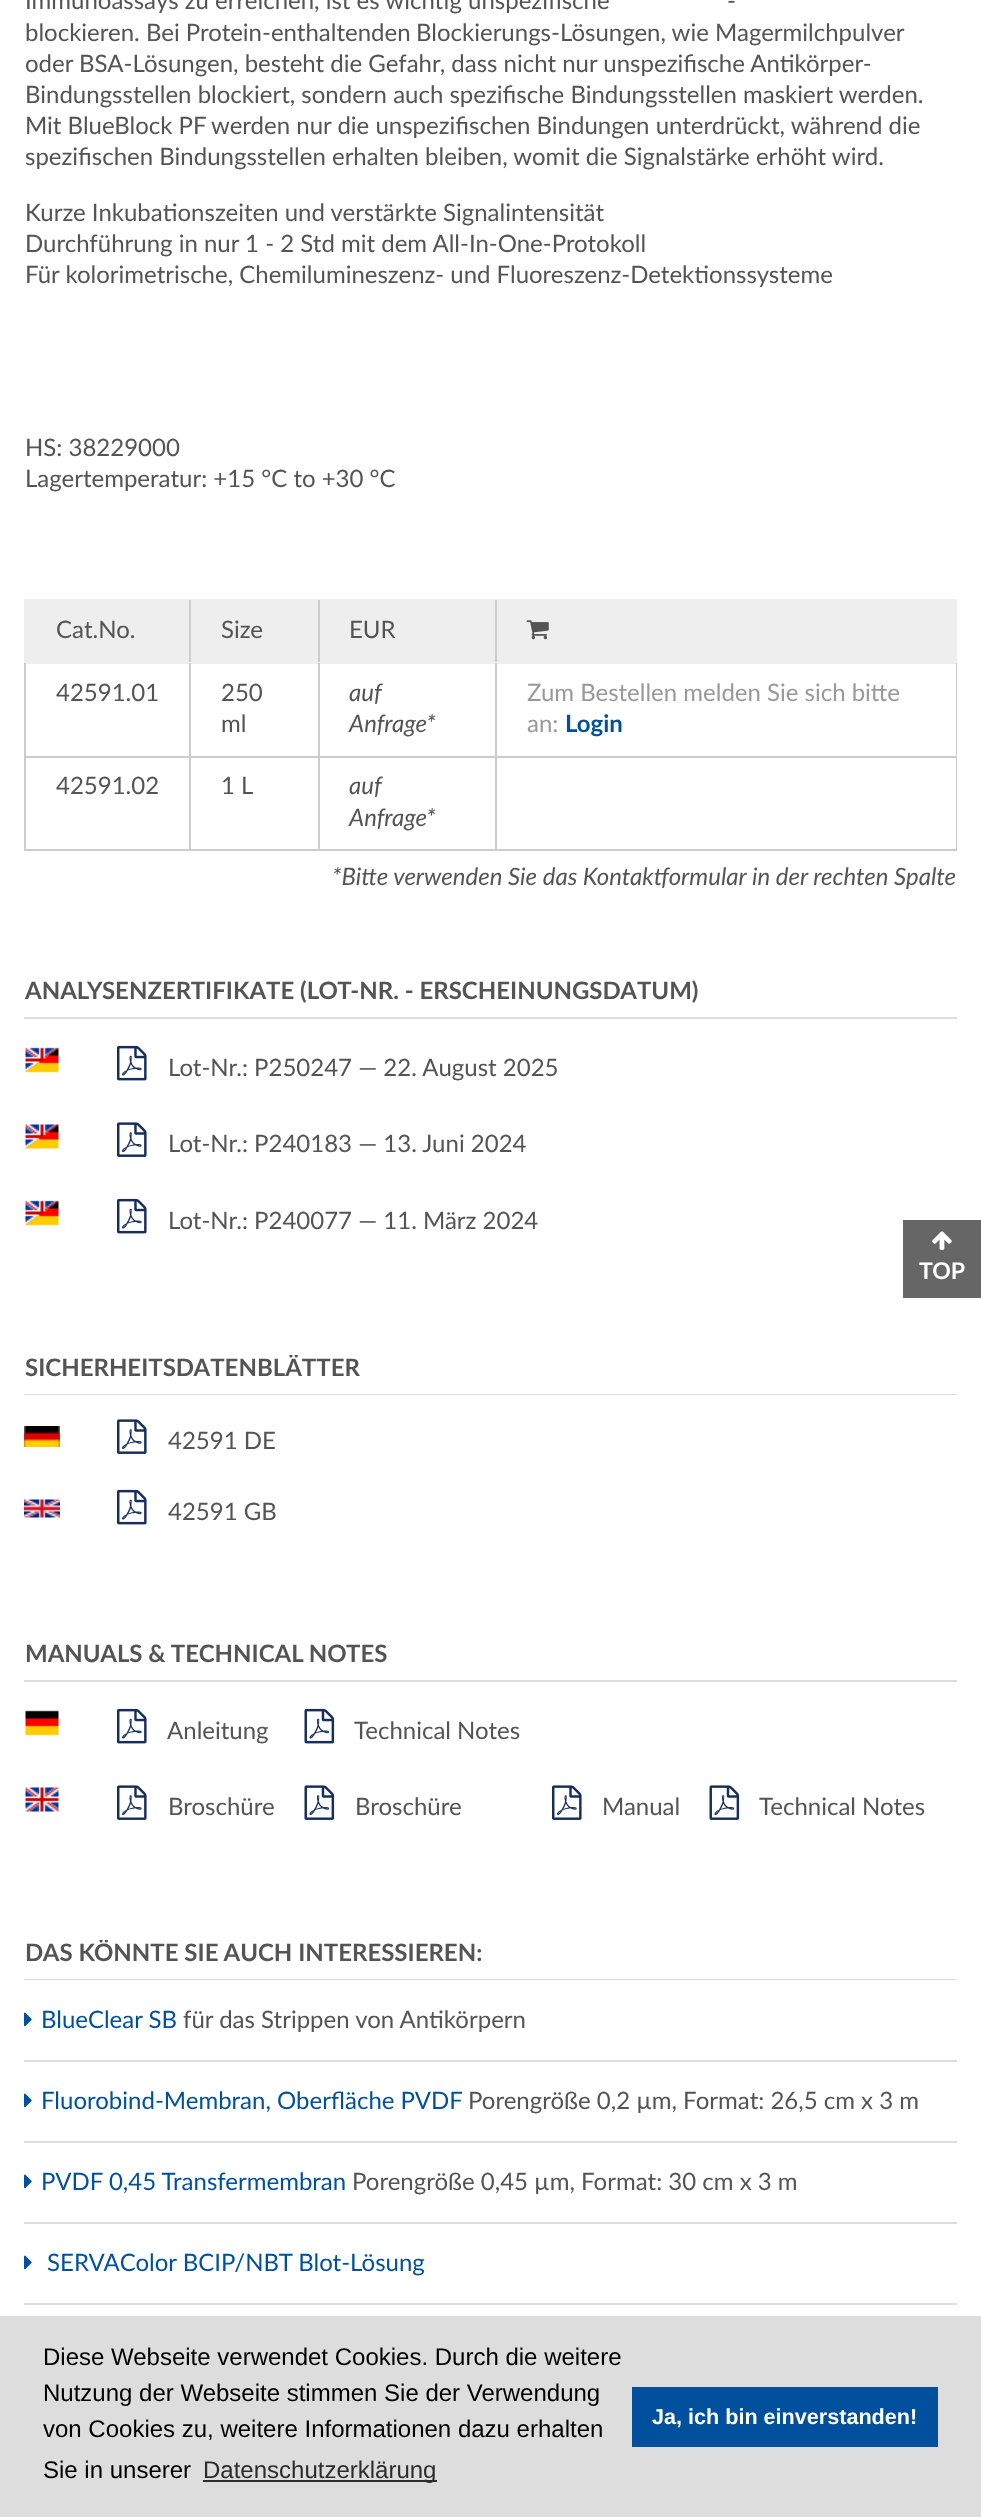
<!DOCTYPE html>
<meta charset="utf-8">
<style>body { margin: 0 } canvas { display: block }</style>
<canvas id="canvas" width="981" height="2517"></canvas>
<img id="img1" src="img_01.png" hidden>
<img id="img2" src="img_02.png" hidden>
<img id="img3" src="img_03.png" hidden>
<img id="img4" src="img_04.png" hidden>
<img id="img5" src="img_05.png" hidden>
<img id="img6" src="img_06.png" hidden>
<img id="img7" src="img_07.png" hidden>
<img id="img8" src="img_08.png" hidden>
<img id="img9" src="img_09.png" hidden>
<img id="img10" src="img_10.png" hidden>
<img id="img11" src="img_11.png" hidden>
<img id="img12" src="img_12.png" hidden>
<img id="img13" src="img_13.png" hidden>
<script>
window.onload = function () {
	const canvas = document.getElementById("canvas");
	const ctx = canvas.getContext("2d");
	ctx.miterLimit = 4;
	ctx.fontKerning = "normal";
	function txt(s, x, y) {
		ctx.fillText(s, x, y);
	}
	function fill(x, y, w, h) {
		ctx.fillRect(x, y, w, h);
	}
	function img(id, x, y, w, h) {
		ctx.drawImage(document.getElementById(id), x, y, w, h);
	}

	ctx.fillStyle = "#FFFFFF";
	fill(0, 0, 981, 2517);
	ctx.fillStyle = "#EEEEEE";
	fill(24, 599, 933, 1);
	ctx.fillStyle = "#CCCCCC";
	fill(24, 849, 933, 2);
	ctx.fillStyle = "#EEEEEE";
	fill(24, 600, 165, 62);
	ctx.fillStyle = "#CCCCCC";
	fill(189, 600, 2, 63);
	ctx.fillStyle = "#EEEEEE";
	fill(24, 662, 167, 2);
	fill(191, 600, 127, 62);
	ctx.fillStyle = "#CCCCCC";
	fill(318, 600, 2, 63);
	ctx.fillStyle = "#EEEEEE";
	fill(191, 662, 129, 2);
	fill(320, 600, 175, 62);
	ctx.fillStyle = "#CCCCCC";
	fill(495, 600, 2, 63);
	ctx.fillStyle = "#EEEEEE";
	fill(320, 662, 177, 2);
	fill(497, 600, 460, 64);
	img("img1", 526, 620, 23, 20);
	ctx.fillStyle = "#CCCCCC";
	fill(189, 663, 2, 186);
	fill(24, 756, 167, 2);
	fill(24, 663, 2, 186);
	fill(318, 663, 2, 186);
	fill(191, 756, 129, 2);
	fill(495, 663, 2, 186);
	fill(320, 756, 177, 2);
	fill(956, 663, 1, 186);
	fill(497, 756, 460, 2);
	ctx.fillStyle = "#DDDDDD";
	fill(24, 1017, 933, 2);
	img("img2", 25, 1047, 34, 26);
	img("img3", 117, 1045, 30, 36);
	img("img4", 25, 1124, 34, 25);
	img("img5", 117, 1122, 30, 35);
	img("img2", 25, 1200, 34, 26);
	img("img3", 117, 1198, 30, 36);
	fill(24, 1394, 933, 1);
	img("img6", 24, 1426, 36, 21);
	img("img5", 117, 1419, 30, 35);
	img("img7", 24, 1499, 36, 19);
	img("img3", 117, 1489, 30, 36);
	fill(24, 1680, 933, 2);
	img("img8", 25, 1710, 34, 26);
	img("img3", 117, 1708, 30, 36);
	img("img9", 304, 1708, 31, 36);
	img("img10", 25, 1787, 34, 25);
	img("img5", 117, 1785, 30, 35);
	img("img11", 304, 1785, 31, 35);
	img("img5", 552, 1785, 30, 35);
	img("img11", 709, 1785, 31, 35);
	fill(24, 1979, 933, 1);
	fill(24, 2060, 933, 2);
	img("img12", 24, 2012, 8, 15);
	fill(24, 2141, 933, 2);
	img("img12", 24, 2093, 8, 15);
	fill(24, 2222, 933, 2);
	img("img12", 24, 2174, 8, 15);
	fill(24, 2303, 933, 2);
	img("img12", 24, 2255, 8, 15);
	ctx.fillStyle = "#666666";
	fill(903, 1220, 78, 78);
	img("img13", 932, 1231, 20, 19);
	ctx.fillStyle = "#DDDDDD";
	fill(0, 2316, 981, 201);
	ctx.fillStyle = "#2C2C2C";
	fill(203, 2480, 234, 2);
	ctx.fillStyle = "#00509E";
	fill(632, 2387, 306, 60);
	ctx.font = "24px Lato";
	ctx.fillStyle = "#545454";
	txt("Immunoassays zu erreichen, ist es wichtig unspezifische", 25, 9);
	txt("-", 727, 9);
	txt("blockieren. Bei Protein-enthaltenden", 25, 41);
	txt("Blockierungs-Lösungen, wie Magermilchpulver", 416, 41);
	txt("oder BSA-Lösungen, besteht die Gefahr, dass nicht nur unspezifische Antikörper-", 25, 72);
	txt("Bindungsstellen blockiert, sondern auch spezifische Bindungsstellen maskiert werden.", 25, 103);
	txt("Mit BlueBlock PF", 25, 134);
	txt("werden nur die unspezifischen Bindungen unterdrückt, während die", 211, 134);
	txt("spezifischen Bindungsstellen erhalten bleiben, womit die Signalstärke erhöht wird.", 25, 165);
	txt("Kurze Inkubationszeiten und verstärkte Signalintensität", 25, 221);
	txt("Durchführung in nur 1 - 2 Std mit dem All-In-One-Protokoll", 25, 252);
	txt("Für kolorimetrische, Chemilumineszenz- und Fluoreszenz-Detektionssysteme", 25, 283);
	txt("HS: 38229000", 25, 456);
	txt("Lagertemperatur: +15 °C to +30 °C", 25, 487);
	txt("Cat.No.", 56, 638);
	txt("Size", 221, 638);
	txt("EUR", 349, 638);
	txt("42591.01", 56, 701);
	txt("250", 221, 701);
	txt("ml", 221, 732);
	ctx.font = "italic 24px Lato";
	txt("auf", 349, 701);
	txt("Anfrage*", 349, 732);
	ctx.font = "24px Lato";
	ctx.fillStyle = "#999999";
	txt("Zum Bestellen melden Sie sich bitte", 527, 701);
	txt("an:", 527, 732);
	ctx.font = "bold 24px Lato";
	ctx.fillStyle = "#00509E";
	txt("Login", 565, 732);
	ctx.font = "24px Lato";
	ctx.fillStyle = "#545454";
	txt("42591.02", 56, 794);
	txt("1 L", 221, 794);
	ctx.font = "italic 24px Lato";
	txt("auf", 349, 794);
	txt("Anfrage*", 349, 826);
	txt("*Bitte verwenden Sie das Kontaktformular in der rechten Spalte", 332, 885);
	ctx.font = "bold 24px Lato";
	txt("ANALYSENZERTIFIKATE (LOT-NR. - ERSCHEINUNGSDATUM)", 25, 999);
	ctx.font = "24px Lato";
	txt("Lot-Nr.: P250247 — 22. August 2025", 168, 1076);
	txt("Lot-Nr.: P240183 — 13. Juni 2024", 168, 1152);
	txt("Lot-Nr.: P240077 — 11. März 2024", 168, 1229);
	ctx.save();
	ctx.beginPath();
	ctx.rect(24, 1355, 933, 40);
	ctx.clip();
	ctx.font = "bold 24px Lato";
	txt("SICHERHEITSDATENBLÄTTER", 25, 1376);
	ctx.restore();
	txt("42591 DE", 168, 1449);
	txt("42591 GB", 168, 1520);
	ctx.font = "bold 24px Lato";
	txt("MANUALS & TECHNICAL NOTES", 25, 1662);
	ctx.font = "24px Lato";
	txt("Anleitung", 167, 1739);
	txt("Technical Notes", 354, 1739);
	txt("Broschüre", 168, 1815);
	txt("Broschüre", 355, 1815);
	txt("Manual", 602, 1815);
	txt("Technical Notes", 759, 1815);
	ctx.save();
	ctx.beginPath();
	ctx.rect(24, 1940, 933, 40);
	ctx.clip();
	ctx.font = "bold 24px Lato";
	txt("DAS KÖNNTE SIE AUCH INTERESSIEREN:", 25, 1961);
	ctx.restore();
	ctx.fillStyle = "#00509E";
	txt("BlueClear SB", 41, 2028);
	ctx.fillStyle = "#545454";
	txt("für das Strippen von Antikörpern", 183, 2028);
	ctx.fillStyle = "#00509E";
	txt("Fluorobind-Membran, Oberfläche PVDF", 41, 2109);
	ctx.fillStyle = "#545454";
	txt("Porengröße 0,2 µm, Format: 26,5 cm x 3 m", 468, 2109);
	ctx.fillStyle = "#00509E";
	txt("PVDF 0,45 Transfermembran", 41, 2190);
	ctx.fillStyle = "#545454";
	txt("Porengröße 0,45 µm, Format: 30 cm x 3 m", 352, 2190);
	ctx.fillStyle = "#00509E";
	txt("SERVAColor BCIP/NBT Blot-Lösung", 47, 2271);
	ctx.font = "bold 23px Lato";
	ctx.fillStyle = "#FFFFFF";
	txt("TOP", 919, 1279);
	ctx.font = "24px Liberation Sans";
	ctx.fillStyle = "#000000";
	txt("Diese Webseite verwendet Cookies. Durch die weitere", 43, 2365);
	txt("Nutzung der Webseite stimmen Sie der Verwendung", 43, 2401);
	txt("von Cookies zu, weitere Informationen dazu erhalten", 43, 2437);
	txt("Sie in unserer", 43, 2478);
	ctx.fillStyle = "#2C2C2C";
	txt("Datenschutzerklärung", 203, 2478);
	ctx.font = "bold 21.6px Liberation Sans";
	ctx.fillStyle = "#FFFFFF";
	txt("Ja, ich bin einverstanden!", 652, 2424);
};
</script>
